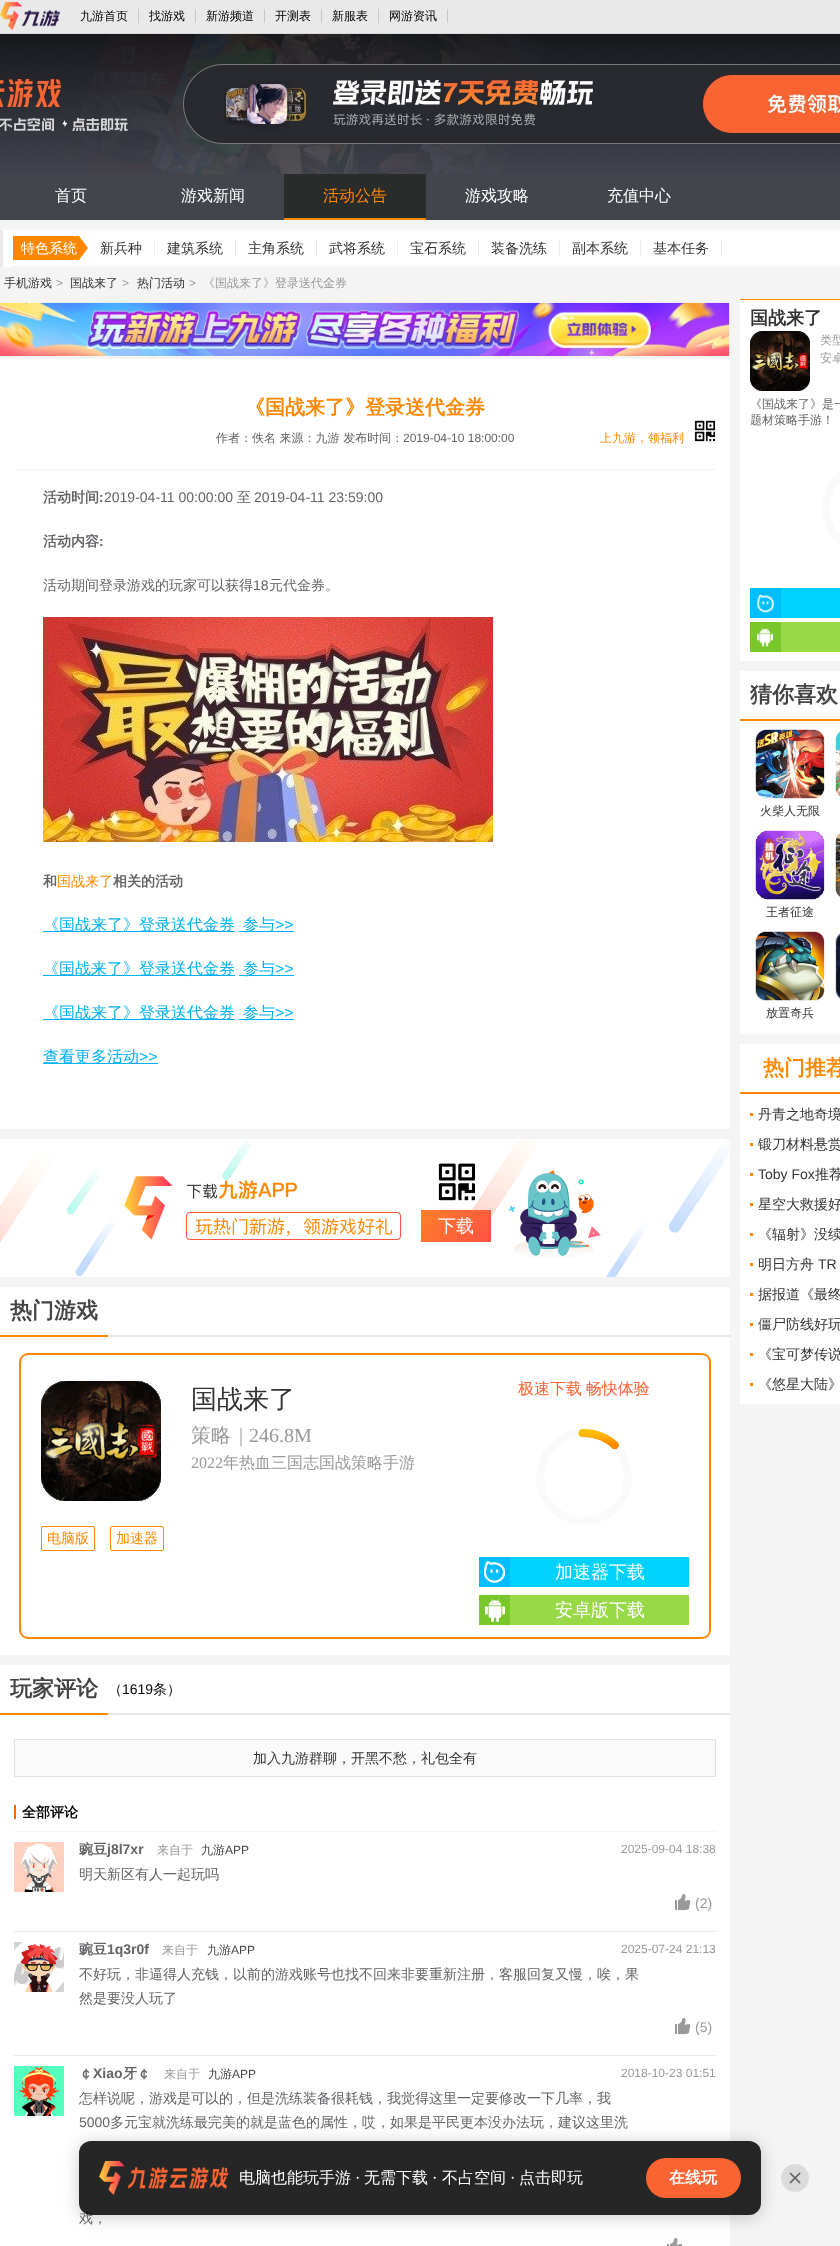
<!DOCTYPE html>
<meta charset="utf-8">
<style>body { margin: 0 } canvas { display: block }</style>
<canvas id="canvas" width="840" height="2246"></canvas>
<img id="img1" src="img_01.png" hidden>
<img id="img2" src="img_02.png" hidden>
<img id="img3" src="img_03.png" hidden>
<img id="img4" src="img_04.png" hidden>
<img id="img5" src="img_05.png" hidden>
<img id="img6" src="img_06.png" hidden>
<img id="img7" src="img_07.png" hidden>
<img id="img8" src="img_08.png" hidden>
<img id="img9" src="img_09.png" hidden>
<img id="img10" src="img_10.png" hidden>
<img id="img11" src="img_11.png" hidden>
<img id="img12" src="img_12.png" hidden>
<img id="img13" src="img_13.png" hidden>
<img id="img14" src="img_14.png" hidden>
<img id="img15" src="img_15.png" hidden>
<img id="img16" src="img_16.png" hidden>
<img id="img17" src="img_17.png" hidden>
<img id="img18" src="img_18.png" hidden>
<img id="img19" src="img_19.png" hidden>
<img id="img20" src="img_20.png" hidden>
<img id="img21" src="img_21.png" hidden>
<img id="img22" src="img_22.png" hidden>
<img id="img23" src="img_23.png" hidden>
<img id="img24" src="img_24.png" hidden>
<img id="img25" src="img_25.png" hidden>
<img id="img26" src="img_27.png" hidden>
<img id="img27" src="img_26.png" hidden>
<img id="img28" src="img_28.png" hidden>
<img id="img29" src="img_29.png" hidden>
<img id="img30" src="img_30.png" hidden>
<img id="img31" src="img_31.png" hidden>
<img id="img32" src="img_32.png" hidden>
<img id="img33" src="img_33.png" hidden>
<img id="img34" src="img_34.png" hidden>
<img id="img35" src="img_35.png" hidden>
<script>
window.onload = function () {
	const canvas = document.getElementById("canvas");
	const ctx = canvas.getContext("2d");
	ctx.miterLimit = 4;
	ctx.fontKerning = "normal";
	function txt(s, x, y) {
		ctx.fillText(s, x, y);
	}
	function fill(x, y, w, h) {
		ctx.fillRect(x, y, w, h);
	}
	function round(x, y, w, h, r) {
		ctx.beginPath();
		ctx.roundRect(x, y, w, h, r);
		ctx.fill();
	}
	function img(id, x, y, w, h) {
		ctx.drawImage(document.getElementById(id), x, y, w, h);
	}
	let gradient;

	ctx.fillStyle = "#F4F4F4";
	fill(0, 0, 840, 2246);
	ctx.fillStyle = "#E9E9E9";
	fill(0, 0, 840, 33);
	ctx.fillStyle = "#DBDBDB";
	fill(0, 33, 840, 1);
	img("img1", 0, 2, 60, 28);
	ctx.fillStyle = "#C6C6C6";
	fill(138, 9, 1, 14);
	fill(195, 9, 1, 14);
	fill(264, 9, 1, 14);
	fill(321, 9, 1, 14);
	fill(378, 9, 1, 14);
	fill(447, 9, 1, 14);
	img("img2", 0, 34, 840, 140);
	ctx.fillStyle = "#42454B";
	fill(0, 174, 840, 46);
	ctx.fillStyle = "#2A2B2B";
	fill(284, 174, 142, 44);
	ctx.fillStyle = "#FF8800";
	fill(284, 218, 142, 2);
	ctx.fillStyle = "#FFFFFF";
	fill(3, 230, 837, 37);
	ctx.fillStyle = "#E9E9E9";
	fill(0, 230, 3, 37);
	ctx.beginPath();
	ctx.moveTo(13, 266.5);
	ctx.lineTo(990, 266.5);
	ctx.strokeStyle = "#E9E9E9";
	ctx.setLineDash([1, 1]);
	ctx.stroke();
	img("img3", 13, 236, 75, 24);
	fill(154, 240, 1, 16);
	fill(235, 240, 1, 16);
	fill(316, 240, 1, 16);
	fill(397, 240, 1, 16);
	fill(478, 240, 1, 16);
	fill(559, 240, 1, 16);
	fill(640, 240, 1, 16);
	fill(721, 240, 1, 16);
	img("img4", 0, 302, 730, 54);
	ctx.fillStyle = "#FFFFFF";
	fill(0, 359, 730, 770);
	ctx.fillStyle = "#F2F2F2";
	fill(15, 469, 700, 1);
	img("img5", 694, 420, 21, 22);
	img("img6", 43, 617, 450, 225);
	ctx.fillStyle = "#00B0F0";
	fill(43, 931, 192, 1);
	fill(239, 931, 55, 1);
	fill(43, 975, 192, 1);
	fill(239, 975, 55, 1);
	fill(43, 1019, 192, 1);
	fill(239, 1019, 55, 1);
	fill(43, 1063, 115, 1);
	img("img7", 0, 1139, 730, 138);
	img("img8", 438, 1163, 37, 38);
	gradient = ctx.createLinearGradient(427, 1203, 485, 1249);
	gradient.addColorStop(0, "#FF7F2A");
	gradient.addColorStop(1, "#FF5244");
	ctx.fillStyle = gradient;
	fill(421, 1210, 70, 32);
	ctx.fillStyle = "#FFFFFF";
	fill(0, 1287, 730, 368);
	ctx.fillStyle = "#E9E9E9";
	fill(108, 1335, 622, 2);
	ctx.fillStyle = "#FF8800";
	fill(0, 1335, 108, 2);
	ctx.beginPath();
	ctx.roundRect(20, 1354, 690, 284, 8);
	ctx.strokeStyle = "#FF8802";
	ctx.lineWidth = 2;
	ctx.setLineDash([]);
	ctx.stroke();
	img("img9", 41, 1381, 120, 120);
	ctx.beginPath();
	ctx.roundRect(41.5, 1526.5, 53, 24, 1.5);
	ctx.lineWidth = 1;
	ctx.stroke();
	ctx.beginPath();
	ctx.roundRect(110.5, 1526.5, 53, 24, 1.5);
	ctx.stroke();
	img("img10", 536, 1429, 96, 96);
	ctx.fillStyle = "#00D1FF";
	fill(510, 1557, 179, 30);
	ctx.fillStyle = "#00BEFF";
	fill(479, 1557, 31, 30);
	img("img11", 484, 1561, 21, 22);
	ctx.fillStyle = "#99D846";
	fill(510, 1595, 179, 30);
	ctx.fillStyle = "#7AC72C";
	fill(479, 1595, 31, 30);
	img("img12", 485, 1599, 20, 23);
	ctx.fillStyle = "#FFFFFF";
	fill(0, 1665, 730, 581);
	ctx.fillStyle = "#E9E9E9";
	fill(108, 1713, 622, 2);
	ctx.fillStyle = "#FF8800";
	fill(0, 1713, 108, 2);
	ctx.fillStyle = "#FAFAFA";
	ctx.beginPath();
	ctx.rect(14.5, 1739.5, 701, 37);
	ctx.fill();
	ctx.strokeStyle = "#E0E0E0";
	ctx.stroke();
	ctx.fillStyle = "#F5F5F5";
	fill(14, 1831, 702, 1);
	ctx.fillStyle = "#FF6600";
	fill(14, 1805, 2, 14);
	ctx.fillStyle = "#EBEBEB";
	fill(14, 1931, 702, 1);
	img("img13", 14, 1842, 50, 50);
	img("img14", 675, 1894, 16, 17);
	fill(14, 2055, 702, 1);
	img("img15", 14, 1942, 50, 50);
	img("img14", 675, 2018, 16, 17);
	img("img16", 14, 2066, 50, 50);
	img("img17", 667, 2238, 16, 8);
	ctx.fillStyle = "#FFFFFF";
	fill(740, 300, 100, 361);
	ctx.fillStyle = "#FF8800";
	fill(740, 299, 100, 1);
	img("img18", 750, 331, 60, 60);
	img("img19", 822, 471, 18, 74);
	ctx.fillStyle = "#00D1FF";
	fill(781, 588, 59, 30);
	ctx.fillStyle = "#00BEFF";
	fill(750, 588, 31, 30);
	img("img20", 756, 594, 19, 19);
	ctx.fillStyle = "#99D846";
	fill(781, 622, 59, 30);
	ctx.fillStyle = "#7AC72C";
	fill(750, 622, 31, 30);
	img("img21", 757, 628, 16, 19);
	ctx.fillStyle = "#FFFFFF";
	fill(740, 671, 100, 363);
	ctx.fillStyle = "#FF8800";
	fill(740, 719, 100, 2);
	img("img22", 835, 729, 5, 70);
	img("img23", 835, 729, 5, 70);
	img("img24", 755, 729, 70, 70);
	img("img25", 755, 729, 70, 70);
	img("img26", 835, 833, 5, 64);
	img("img27", 835, 832, 5, 66);
	img("img28", 755, 830, 70, 70);
	img("img29", 755, 830, 70, 70);
	img("img30", 835, 933, 5, 66);
	img("img31", 835, 933, 5, 67);
	img("img32", 755, 931, 70, 70);
	img("img33", 755, 931, 70, 70);
	ctx.fillStyle = "#FFFFFF";
	fill(740, 1044, 100, 360);
	ctx.fillStyle = "#FF8800";
	fill(740, 1092, 100, 2);
	fill(750, 1113, 3, 3);
	fill(750, 1143, 3, 3);
	fill(750, 1173, 3, 3);
	fill(750, 1203, 3, 3);
	fill(750, 1233, 3, 3);
	fill(750, 1263, 3, 3);
	fill(750, 1293, 3, 3);
	fill(750, 1323, 3, 3);
	fill(750, 1353, 3, 3);
	fill(750, 1383, 3, 3);
	ctx.save();
	ctx.beginPath();
	ctx.moveTo(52, 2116);
	ctx.lineTo(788, 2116);
	ctx.lineTo(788, 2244);
	ctx.lineTo(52, 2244);
	ctx.closePath();
	ctx.moveTo(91, 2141);
	ctx.lineTo(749, 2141);
	ctx.bezierCurveTo(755.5, 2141, 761, 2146.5, 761, 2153);
	ctx.lineTo(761, 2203);
	ctx.bezierCurveTo(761, 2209.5, 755.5, 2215, 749, 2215);
	ctx.lineTo(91, 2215);
	ctx.bezierCurveTo(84.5, 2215, 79, 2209.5, 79, 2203);
	ctx.lineTo(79, 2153);
	ctx.bezierCurveTo(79, 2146.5, 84.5, 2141, 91, 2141);
	ctx.closePath();
	ctx.clip("evenodd");
	ctx.fillStyle = "rgba(0, 0, 0, 0.2)";
	ctx.filter = "blur(8.5px)";
	ctx.beginPath();
	ctx.roundRect(79, 2143, 682, 74, 12);
	ctx.fill();
	ctx.filter = "none";
	ctx.restore();
	img("img34", 781, 2164, 28, 28);
	ctx.font = "500 12px WenQuanYi Zen Hei";
	ctx.fillStyle = "#000000";
	txt("九游首页", 80, 20);
	txt("找游戏", 149, 20);
	txt("新游频道", 206, 20);
	txt("开测表", 275, 20);
	txt("新服表", 332, 20);
	txt("网游资讯", 389, 20);
	ctx.font = "500 16px WenQuanYi Zen Hei";
	ctx.fillStyle = "#FFFFFF";
	txt("首页", 55, 201);
	txt("游戏新闻", 181, 201);
	ctx.fillStyle = "#FF8800";
	txt("活动公告", 323, 201);
	ctx.fillStyle = "#FFFFFF";
	txt("游戏攻略", 465, 201);
	txt("充值中心", 607, 201);
	ctx.font = "500 14px WenQuanYi Zen Hei";
	txt("特色系统", 21, 253);
	ctx.fillStyle = "#333333";
	txt("新兵种", 100, 253);
	txt("建筑系统", 167, 253);
	txt("主角系统", 248, 253);
	txt("武将系统", 329, 253);
	txt("宝石系统", 410, 253);
	txt("装备洗练", 491, 253);
	txt("副本系统", 572, 253);
	txt("基本任务", 653, 253);
	ctx.font = "500 12px WenQuanYi Zen Hei";
	txt("手机游戏", 4, 287);
	ctx.font = "12px Liberation Sans";
	ctx.fillStyle = "#999999";
	txt(">", 56, 287);
	ctx.font = "500 12px WenQuanYi Zen Hei";
	ctx.fillStyle = "#333333";
	txt("国战来了", 70, 287);
	ctx.font = "12px Liberation Sans";
	ctx.fillStyle = "#999999";
	txt(">", 122, 287);
	ctx.font = "500 12px WenQuanYi Zen Hei";
	ctx.fillStyle = "#333333";
	txt("热门活动", 137, 287);
	ctx.font = "12px Liberation Sans";
	ctx.fillStyle = "#999999";
	txt(">", 189, 287);
	ctx.font = "500 12px WenQuanYi Zen Hei";
	txt("《国战来了》登录送代金券", 203, 287);
	ctx.font = "bold 20px WenQuanYi Zen Hei";
	ctx.fillStyle = "#FF8800";
	txt("《国战来了》登录送代金券", 245, 414);
	ctx.font = "500 12px WenQuanYi Zen Hei";
	ctx.fillStyle = "#616366";
	txt("作者：佚名 来源：九游 发布时间：", 216, 442);
	ctx.font = "12px Liberation Sans";
	txt("2019-04-10 18:00:00", 403, 442);
	ctx.font = "500 12px WenQuanYi Zen Hei";
	ctx.fillStyle = "#FF8800";
	txt("上九游，领福利", 600, 442);
	ctx.font = "bold 14px WenQuanYi Zen Hei";
	ctx.fillStyle = "#616366";
	txt("活动时间", 43, 502);
	ctx.font = "bold 14px Liberation Sans";
	txt(":", 99, 502);
	ctx.font = "14px Liberation Sans";
	txt("2019-04-11 00:00:00", 104, 502);
	ctx.font = "500 14px WenQuanYi Zen Hei";
	txt("至", 237, 502);
	ctx.font = "14px Liberation Sans";
	txt("2019-04-11 23:59:00", 254, 502);
	ctx.font = "bold 14px WenQuanYi Zen Hei";
	txt("活动内容", 43, 546);
	ctx.font = "bold 14px Liberation Sans";
	txt(":", 99, 546);
	ctx.font = "500 14px WenQuanYi Zen Hei";
	txt("活动期间登录游戏的玩家可以获得", 43, 590);
	ctx.font = "14px Liberation Sans";
	txt("18", 253, 590);
	ctx.font = "500 14px WenQuanYi Zen Hei";
	txt("元代金券。", 269, 590);
	ctx.font = "bold 14px WenQuanYi Zen Hei";
	txt("和", 43, 886);
	ctx.font = "500 14px WenQuanYi Zen Hei";
	ctx.fillStyle = "#FF8800";
	txt("国战来了", 57, 886);
	ctx.font = "bold 14px WenQuanYi Zen Hei";
	ctx.fillStyle = "#616366";
	txt("相关的活动", 113, 886);
	ctx.font = "500 16px WenQuanYi Zen Hei";
	ctx.fillStyle = "#00B0F0";
	txt("《国战来了》登录送代金券", 43, 930);
	txt("参与", 243, 930);
	ctx.font = "16px Liberation Sans";
	txt(">>", 275, 930);
	ctx.font = "500 16px WenQuanYi Zen Hei";
	txt("《国战来了》登录送代金券", 43, 974);
	txt("参与", 243, 974);
	ctx.font = "16px Liberation Sans";
	txt(">>", 275, 974);
	ctx.font = "500 16px WenQuanYi Zen Hei";
	txt("《国战来了》登录送代金券", 43, 1018);
	txt("参与", 243, 1018);
	ctx.font = "16px Liberation Sans";
	txt(">>", 275, 1018);
	ctx.font = "500 16px WenQuanYi Zen Hei";
	txt("查看更多活动", 43, 1062);
	ctx.font = "16px Liberation Sans";
	txt(">>", 139, 1062);
	ctx.font = "500 18px WenQuanYi Zen Hei";
	ctx.fillStyle = "#FFFFFF";
	txt("下载", 438, 1232);
	ctx.font = "bold 22px WenQuanYi Zen Hei";
	ctx.fillStyle = "#444444";
	txt("热门游戏", 10, 1318);
	ctx.font = "500 26px WenQuanYi Zen Hei";
	ctx.fillStyle = "#333333";
	txt("国战来了", 191, 1408);
	ctx.font = "500 20px WenQuanYi Zen Hei";
	ctx.fillStyle = "#999999";
	txt("策略", 191, 1442);
	ctx.font = "20px Liberation Serif";
	txt("|", 239, 1442);
	txt("246.8M", 249, 1442);
	ctx.font = "16px Liberation Serif";
	txt("2022", 191, 1468);
	ctx.font = "500 16px WenQuanYi Zen Hei";
	txt("年热血三国志国战策略手游", 223, 1468);
	ctx.font = "500 14px WenQuanYi Zen Hei";
	ctx.fillStyle = "#FF8800";
	txt("电脑版", 47, 1543);
	txt("加速器", 116, 1543);
	ctx.wordSpacing = "-1px";
	ctx.font = "500 16px WenQuanYi Zen Hei";
	ctx.fillStyle = "#F96432";
	txt("极速下载 畅快体验", 518, 1394);
	ctx.wordSpacing = "0px";
	ctx.font = "500 18px WenQuanYi Zen Hei";
	ctx.fillStyle = "#FFFFFF";
	txt("加速器下载", 555, 1578);
	txt("安卓版下载", 555, 1616);
	ctx.font = "bold 22px WenQuanYi Zen Hei";
	ctx.fillStyle = "#444444";
	txt("玩家评论", 10, 1696);
	ctx.font = "500 14px WenQuanYi Zen Hei";
	ctx.fillStyle = "#000000";
	txt("（", 108, 1694);
	ctx.font = "14px Liberation Sans";
	txt("1619", 122, 1694);
	ctx.font = "500 14px WenQuanYi Zen Hei";
	txt("条）", 153, 1694);
	ctx.fillStyle = "#333333";
	txt("加入九游群聊，开黑不愁，礼包全有", 253, 1763);
	ctx.font = "bold 14px WenQuanYi Zen Hei";
	ctx.fillStyle = "#000000";
	txt("全部评论", 22, 1817);
	ctx.fillStyle = "#616366";
	txt("豌豆", 79, 1854);
	ctx.font = "bold 14px Liberation Sans";
	txt("j8l7xr", 107, 1854);
	ctx.font = "500 12px WenQuanYi Zen Hei";
	ctx.fillStyle = "#999999";
	txt("来自于", 157, 1854);
	ctx.fillStyle = "#444444";
	txt("九游", 201, 1854);
	ctx.font = "12px Liberation Sans";
	txt("APP", 225, 1854);
	ctx.fillStyle = "#999999";
	txt("2025-09-04 18:38", 621, 1853);
	ctx.font = "500 14px WenQuanYi Zen Hei";
	ctx.fillStyle = "#616366";
	txt("明天新区有人一起玩吗", 79, 1879);
	ctx.font = "14px Liberation Sans";
	ctx.fillStyle = "#999999";
	txt("(2)", 695, 1908);
	ctx.font = "bold 14px WenQuanYi Zen Hei";
	ctx.fillStyle = "#616366";
	txt("豌豆", 79, 1954);
	ctx.font = "bold 14px Liberation Sans";
	txt("1q3r0f", 107, 1954);
	ctx.font = "500 12px WenQuanYi Zen Hei";
	ctx.fillStyle = "#999999";
	txt("来自于", 162, 1954);
	ctx.fillStyle = "#444444";
	txt("九游", 207, 1954);
	ctx.font = "12px Liberation Sans";
	txt("APP", 231, 1954);
	ctx.fillStyle = "#999999";
	txt("2025-07-24 21:13", 621, 1953);
	ctx.font = "500 14px WenQuanYi Zen Hei";
	ctx.fillStyle = "#616366";
	txt("不好玩，非逼得人充钱，以前的游戏账号也找不回来非要重新注册，客服回复又慢，唉，果", 79, 1979);
	txt("然是要没人玩了", 79, 2003);
	ctx.font = "14px Liberation Sans";
	ctx.fillStyle = "#999999";
	txt("(5)", 695, 2032);
	ctx.font = "bold 14px WenQuanYi Zen Hei";
	ctx.fillStyle = "#616366";
	txt("￠", 79, 2078);
	ctx.font = "bold 14px Liberation Sans";
	txt("Xiao", 93, 2078);
	ctx.font = "bold 14px WenQuanYi Zen Hei";
	txt("牙￠", 123, 2078);
	ctx.font = "500 12px WenQuanYi Zen Hei";
	ctx.fillStyle = "#999999";
	txt("来自于", 164, 2078);
	ctx.fillStyle = "#444444";
	txt("九游", 208, 2078);
	ctx.font = "12px Liberation Sans";
	txt("APP", 232, 2078);
	ctx.fillStyle = "#999999";
	txt("2018-10-23 01:51", 621, 2077);
	ctx.font = "500 14px WenQuanYi Zen Hei";
	ctx.fillStyle = "#616366";
	txt("怎样说呢，游戏是可以的，但是洗练装备很耗钱，我觉得这里一定要修改一下几率，我", 79, 2103);
	ctx.font = "14px Liberation Sans";
	txt("5000", 79, 2127);
	ctx.font = "500 14px WenQuanYi Zen Hei";
	txt("多元宝就洗练最完美的就是蓝色的属性，哎，如果是平民更本没办法玩，建议这里洗", 110, 2127);
	txt("戏，", 79, 2223);
	ctx.font = "bold 18px WenQuanYi Zen Hei";
	ctx.fillStyle = "#333333";
	txt("国战来了", 750, 324);
	ctx.font = "500 12px WenQuanYi Zen Hei";
	ctx.fillStyle = "#999999";
	txt("类型", 820, 344);
	txt("安卓", 820, 362);
	ctx.fillStyle = "#616366";
	txt("《国战来了》是一", 750, 408);
	txt("题材策略手游！", 750, 424);
	ctx.font = "bold 22px WenQuanYi Zen Hei";
	ctx.fillStyle = "#444444";
	txt("猜你喜欢", 750, 702);
	ctx.font = "500 12px WenQuanYi Zen Hei";
	ctx.fillStyle = "#333333";
	txt("火柴人无限", 760, 815);
	txt("王者征途", 766, 916);
	txt("放置奇兵", 766, 1017);
	ctx.font = "bold 21px WenQuanYi Zen Hei";
	ctx.fillStyle = "#FF8800";
	txt("热门推荐", 763, 1075);
	ctx.font = "500 14px WenQuanYi Zen Hei";
	ctx.fillStyle = "#333333";
	txt("丹青之地奇境", 758, 1119);
	txt("锻刀材料悬赏", 758, 1149);
	ctx.font = "14px Liberation Sans";
	txt("Toby Fox", 758, 1179);
	ctx.font = "500 14px WenQuanYi Zen Hei";
	txt("推荐", 815, 1179);
	txt("星空大救援好", 758, 1209);
	txt("《辐射》没续", 758, 1239);
	txt("明日方舟", 758, 1269);
	ctx.font = "14px Liberation Sans";
	txt("TR", 818, 1269);
	ctx.font = "500 14px WenQuanYi Zen Hei";
	txt("据报道《最终", 758, 1299);
	txt("僵尸防线好玩", 758, 1329);
	txt("《宝可梦传说", 758, 1359);
	txt("《悠星大陆》", 758, 1389);
	ctx.fillStyle = "rgba(0, 0, 0, 0.85)";
	round(79, 2141, 682, 74, 12);
	img("img35", 99, 2161, 130, 34);
	ctx.font = "500 16px WenQuanYi Zen Hei";
	ctx.fillStyle = "#FFFFFF";
	txt("电脑也能玩手游", 239, 2183);
	ctx.font = "16px Liberation Serif";
	txt("·", 355, 2183);
	ctx.font = "500 16px WenQuanYi Zen Hei";
	txt("无需下载", 364, 2183);
	ctx.font = "16px Liberation Serif";
	txt("·", 432, 2183);
	ctx.font = "500 16px WenQuanYi Zen Hei";
	txt("不占空间", 442, 2183);
	ctx.font = "16px Liberation Serif";
	txt("·", 510, 2183);
	ctx.font = "500 16px WenQuanYi Zen Hei";
	txt("点击即玩", 519, 2183);
	ctx.fillStyle = "#F96432";
	round(646, 2158, 95, 40, 20);
	ctx.font = "bold 16px WenQuanYi Zen Hei";
	ctx.fillStyle = "#FFFFFF";
	txt("在线玩", 669, 2183);
};
</script>
